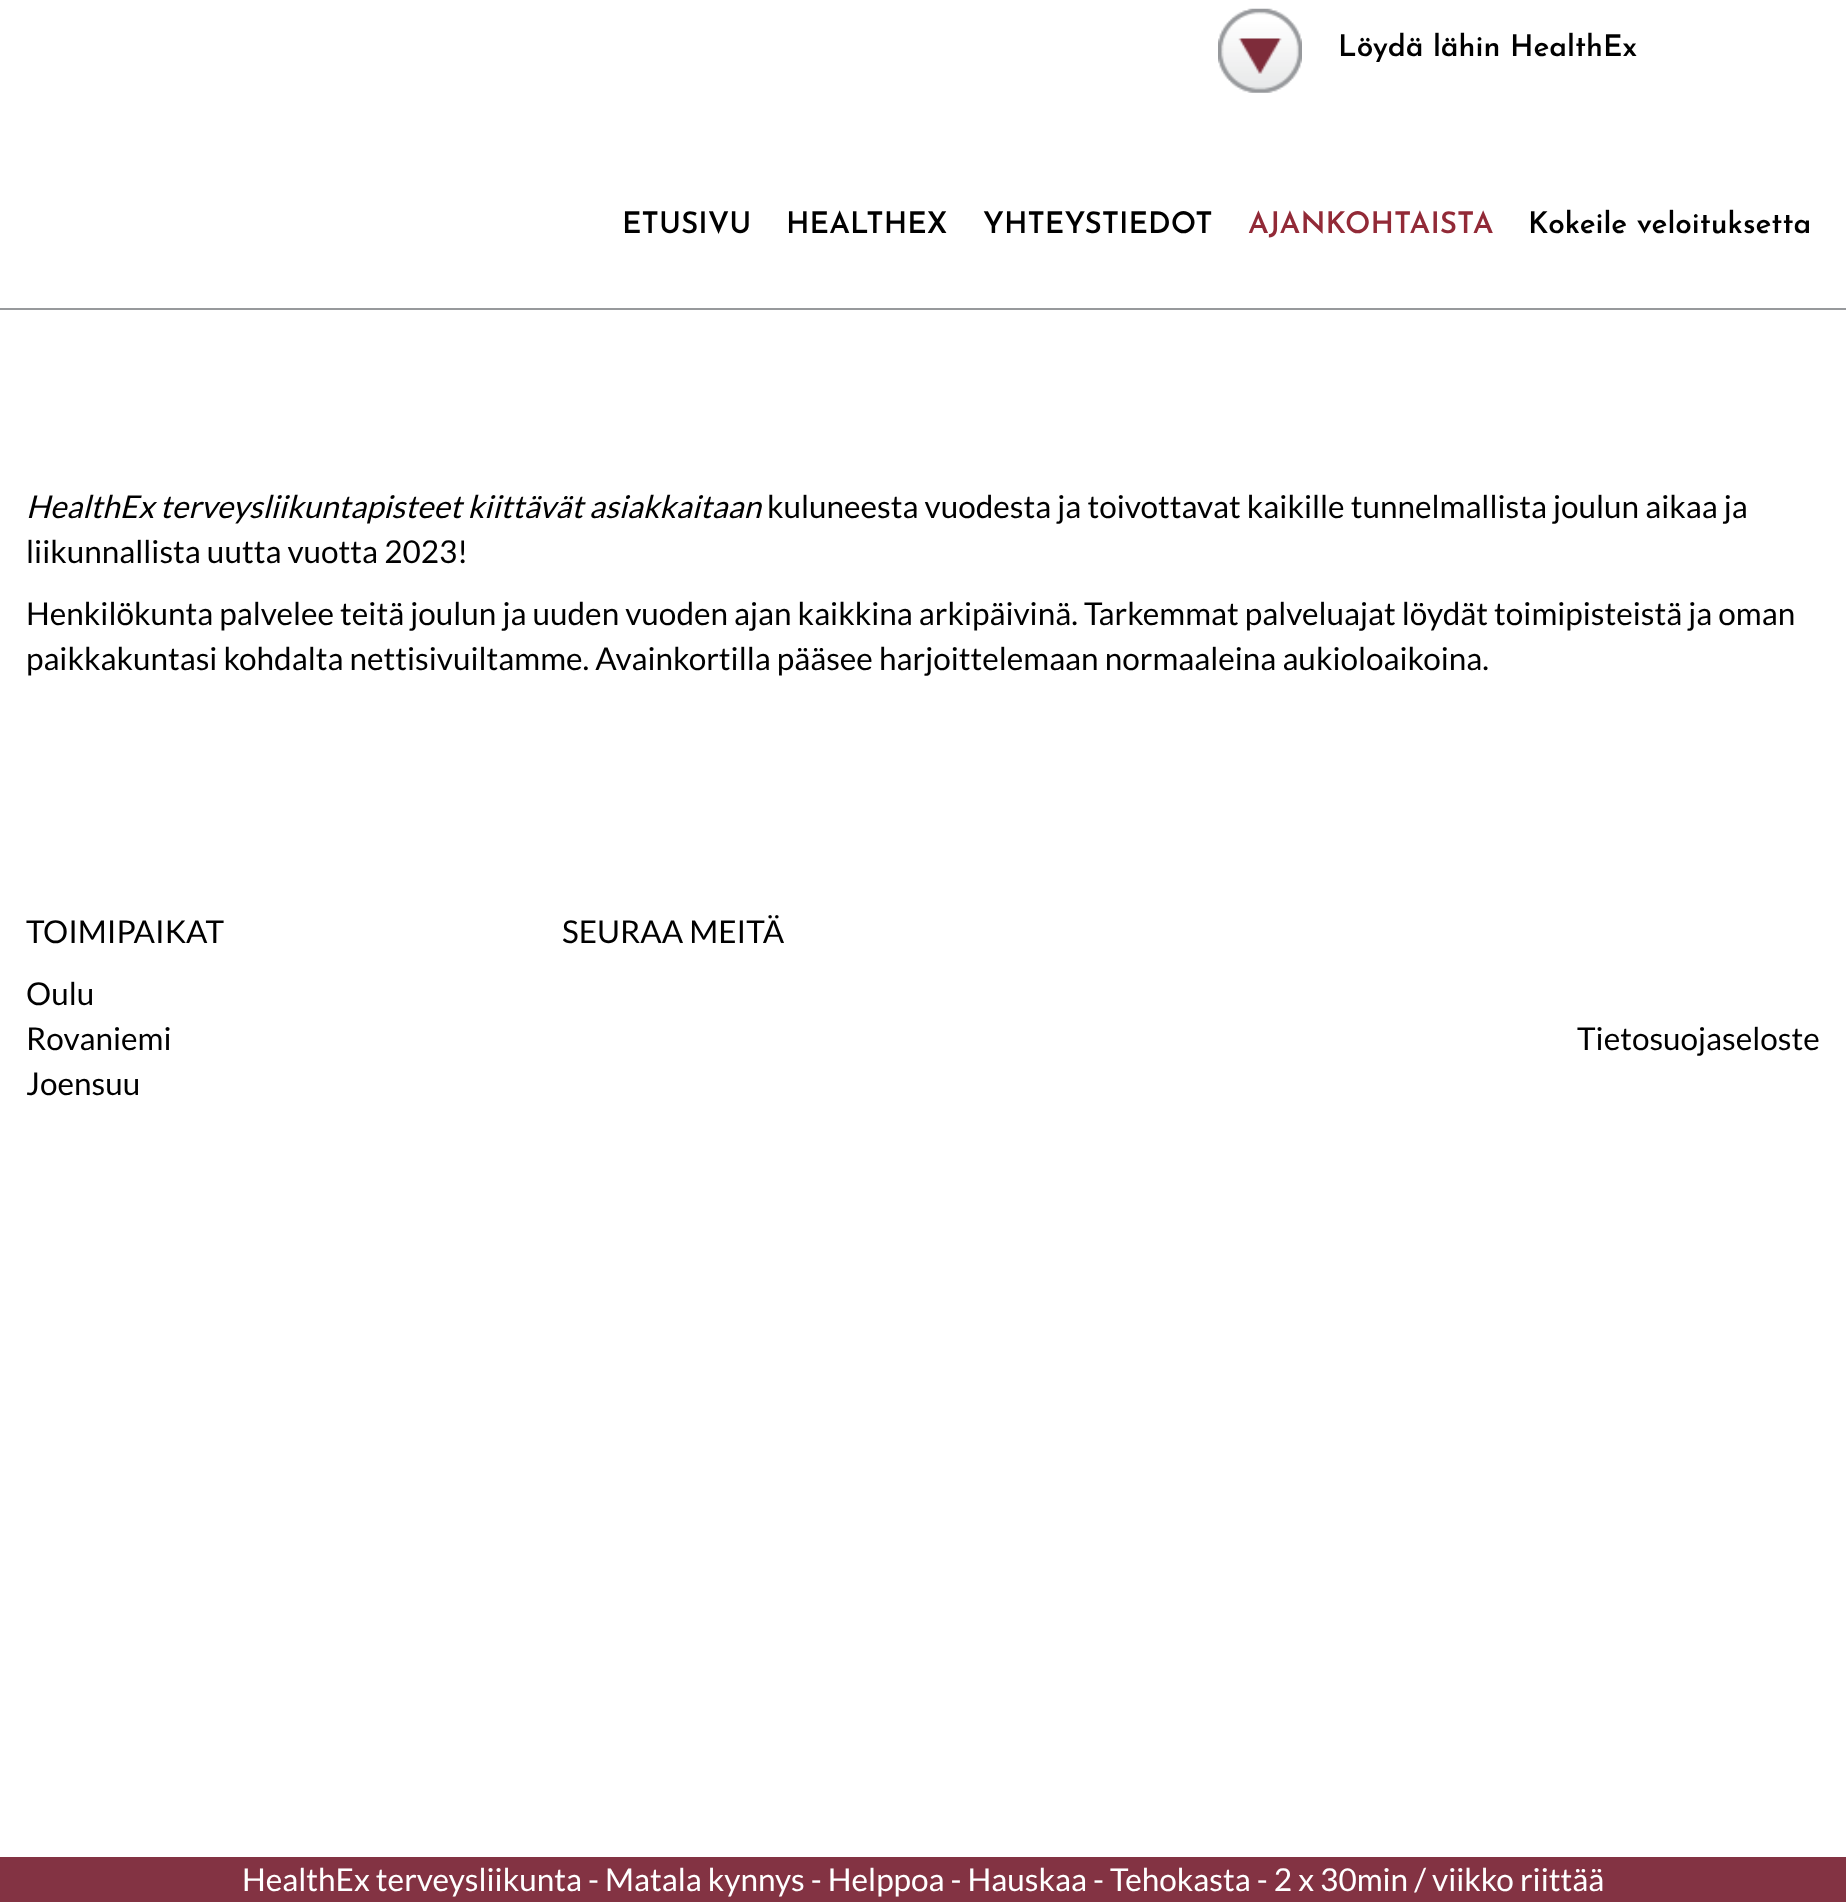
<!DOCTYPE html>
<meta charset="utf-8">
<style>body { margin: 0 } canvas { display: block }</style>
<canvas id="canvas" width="1846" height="1902"></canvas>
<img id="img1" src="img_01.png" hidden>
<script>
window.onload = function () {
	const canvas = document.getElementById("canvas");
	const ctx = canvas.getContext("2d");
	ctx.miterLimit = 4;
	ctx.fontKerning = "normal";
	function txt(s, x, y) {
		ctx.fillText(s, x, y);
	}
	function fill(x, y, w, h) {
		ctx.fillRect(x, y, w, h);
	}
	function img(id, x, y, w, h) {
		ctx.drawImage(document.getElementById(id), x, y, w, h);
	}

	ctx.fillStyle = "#FFFFFF";
	fill(0, 0, 1846, 1902);
	img("img1", 1218, 8, 84, 85);
	ctx.fillStyle = "#97999C";
	fill(0, 308, 1846, 2);
	ctx.fillStyle = "#833343";
	fill(0, 1857, 1846, 45);
	ctx.font = "600 29.75px Josefin Sans";
	ctx.fillStyle = "#000000";
	txt("Löydä lähin HealthEx", 1338, 56);
	txt("ETUSIVU", 622, 233);
	txt("HEALTHEX", 786, 233);
	txt("YHTEYSTIEDOT", 983, 233);
	ctx.fillStyle = "#922A37";
	txt("AJANKOHTAISTA", 1248, 233);
	ctx.fillStyle = "#000000";
	txt("Kokeile veloituksetta", 1528, 233);
	ctx.font = "italic 31.5px Lato";
	txt("HealthEx terveysliikuntapisteet kiittävät asiakkaitaan", 26, 518);
	ctx.font = "31.5px Lato";
	txt("kuluneesta vuodesta ja toivottavat kaikille tunnelmallista joulun aikaa ja", 767, 518);
	txt("liikunnallista uutta vuotta 2023!", 26, 563);
	txt("Henkilökunta palvelee teitä joulun ja uuden vuoden ajan kaikkina arkipäivinä. Tarkemmat palveluajat löydät toimipisteistä ja oman", 26, 625);
	txt("paikkakuntasi kohdalta nettisivuiltamme. Avainkortilla pääsee harjoittelemaan normaaleina aukioloaikoina.", 26, 670);
	txt("TOIMIPAIKAT", 26, 943);
	txt("Oulu", 26, 1005);
	txt("Rovaniemi", 26, 1050);
	txt("Joensuu", 26, 1095);
	txt("SEURAA MEITÄ", 562, 943);
	txt("Tietosuojaseloste", 1577, 1050);
	ctx.fillStyle = "#FFFFFF";
	txt("HealthEx terveysliikunta - Matala kynnys - Helppoa - Hauskaa - Tehokasta - 2 x 30min / viikko riittää", 242, 1891);
};
</script>
